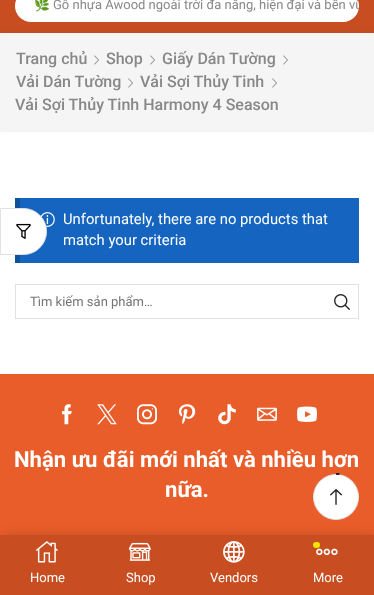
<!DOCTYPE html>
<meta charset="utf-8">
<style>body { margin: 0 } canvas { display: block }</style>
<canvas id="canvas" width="374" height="595"></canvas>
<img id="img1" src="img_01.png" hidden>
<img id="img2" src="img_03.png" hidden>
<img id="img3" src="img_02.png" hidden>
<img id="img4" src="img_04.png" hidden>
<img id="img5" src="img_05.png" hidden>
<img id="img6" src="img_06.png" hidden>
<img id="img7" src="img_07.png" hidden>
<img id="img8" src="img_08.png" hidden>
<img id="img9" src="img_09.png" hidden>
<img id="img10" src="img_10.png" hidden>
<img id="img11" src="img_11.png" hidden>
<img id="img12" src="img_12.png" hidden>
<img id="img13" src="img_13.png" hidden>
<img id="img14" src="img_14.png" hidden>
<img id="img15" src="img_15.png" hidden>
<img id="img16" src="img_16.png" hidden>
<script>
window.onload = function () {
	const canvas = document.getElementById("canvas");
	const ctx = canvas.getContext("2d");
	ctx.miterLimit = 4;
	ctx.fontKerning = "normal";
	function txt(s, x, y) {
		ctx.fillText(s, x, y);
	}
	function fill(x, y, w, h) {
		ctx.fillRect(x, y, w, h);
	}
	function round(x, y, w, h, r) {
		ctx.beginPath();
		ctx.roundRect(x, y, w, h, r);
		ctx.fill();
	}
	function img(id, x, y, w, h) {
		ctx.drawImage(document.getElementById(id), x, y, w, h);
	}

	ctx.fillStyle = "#FFFFFF";
	fill(0, 0, 374, 595);
	ctx.fillStyle = "#C84E22";
	fill(0, 0, 374, 33);
	ctx.fillStyle = "#FFFFFF";
	round(15, -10, 344, 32, 16);
	ctx.fillStyle = "rgba(0, 0, 0, 0.04)";
	ctx.filter = "blur(2.5px)";
	ctx.beginPath();
	ctx.rect(0, 31, 374, 99);
	ctx.fill();
	ctx.filter = "none";
	ctx.fillStyle = "#F5F5F5";
	fill(0, 33, 374, 99);
	img("img1", 94, 55, 5, 10);
	img("img1", 150, 55, 5, 10);
	img("img1", 283, 55, 5, 10);
	img("img1", 128, 78, 5, 10);
	img("img1", 272, 78, 5, 10);
	ctx.fillStyle = "#1565C0";
	fill(20, 198, 339, 65);
	ctx.fillStyle = "#11519A";
	fill(15, 198, 5, 65);
	img("img2", 41, 212, 14, 15);
	ctx.fillStyle = "#FFFFFF";
	ctx.beginPath();
	ctx.roundRect(0.5, 208.5, 46, 46, [0, 23, 23, 0]);
	ctx.fill();
	ctx.strokeStyle = "#E1E1E1";
	ctx.stroke();
	img("img3", 16, 223, 15, 16);
	ctx.strokeRect(15.5, 284.5, 343, 34);
	img("img4", 334, 294, 16, 16);
	ctx.fillStyle = "#E95D2A";
	fill(0, 374, 374, 161);
	ctx.fillStyle = "rgba(0, 0, 0, 0.15)";
	ctx.filter = "blur(6px)";
	ctx.beginPath();
	ctx.rect(2, 535, 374, 60);
	ctx.fill();
	ctx.filter = "none";
	ctx.fillStyle = "#FFFFFF";
	ctx.beginPath();
	ctx.arc(336, 497, 22.5, 0, Math.PI * 2);
	ctx.fill();
	ctx.stroke();
	ctx.beginPath();
	ctx.moveTo(336, 474);
	ctx.lineTo(339.5, 474);
	ctx.strokeStyle = "#222222";
	ctx.lineWidth = 1.9;
	ctx.stroke();
	img("img5", 330, 489, 12, 16);
	ctx.fillStyle = "#C84E22";
	fill(0, 535, 374, 60);
	img("img6", 36, 541, 22, 22);
	img("img7", 129, 542, 22, 19);
	img("img8", 223, 541, 22, 22);
	ctx.fillStyle = "#F3E500";
	round(313, 542, 7, 6, 3);
	img("img9", 316, 548, 22, 8);
	img("img10", 62, 404, 10, 21);
	img("img11", 97, 404, 20, 21);
	img("img12", 137, 404, 20, 21);
	img("img13", 178, 404, 18, 21);
	img("img14", 218, 404, 18, 21);
	img("img15", 257, 407, 20, 14);
	img("img16", 297, 406, 20, 16);
	ctx.font = "13px Noto Color Emoji";
	ctx.fillStyle = "#888888";
	txt("🌿", 34, 9);
	ctx.save();
	ctx.beginPath();
	ctx.roundRect(15, -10, 344, 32, 16);
	ctx.clip();
	ctx.font = "13px Roboto";
	txt("Gỗ nhựa Awood ngoài trời đa năng, hiện đại và bền vữ", 53, 9);
	ctx.restore();
	ctx.font = "500 16px Roboto";
	txt("Trang chủ", 16, 64);
	txt("Shop", 106, 64);
	txt("Giấy Dán Tường", 162, 64);
	txt("Vải Dán Tường", 16, 87);
	txt("Vải Sợi Thủy Tinh", 140, 87);
	txt("Vải Sợi Thủy Tinh Harmony 4 Season", 15, 110);
	ctx.font = "14.8px Roboto";
	ctx.fillStyle = "#FFFFFF";
	txt("Unfortunately, there are no products that", 63, 224);
	txt("match your criteria", 63, 245);
	ctx.font = "13px Roboto";
	ctx.fillStyle = "#757575";
	txt("Tìm kiếm sản phẩm…", 30, 306);
	ctx.fillStyle = "#FFFFFF";
	txt("Home", 30, 582);
	txt("Shop", 126, 582);
	txt("Vendors", 210, 582);
	txt("More", 313, 582);
	ctx.font = "bold 22.1px Roboto";
	txt("Nhận ưu đãi mới nhất và nhiều hơn", 14, 467);
	txt("nữa.", 165, 497);
};
</script>
